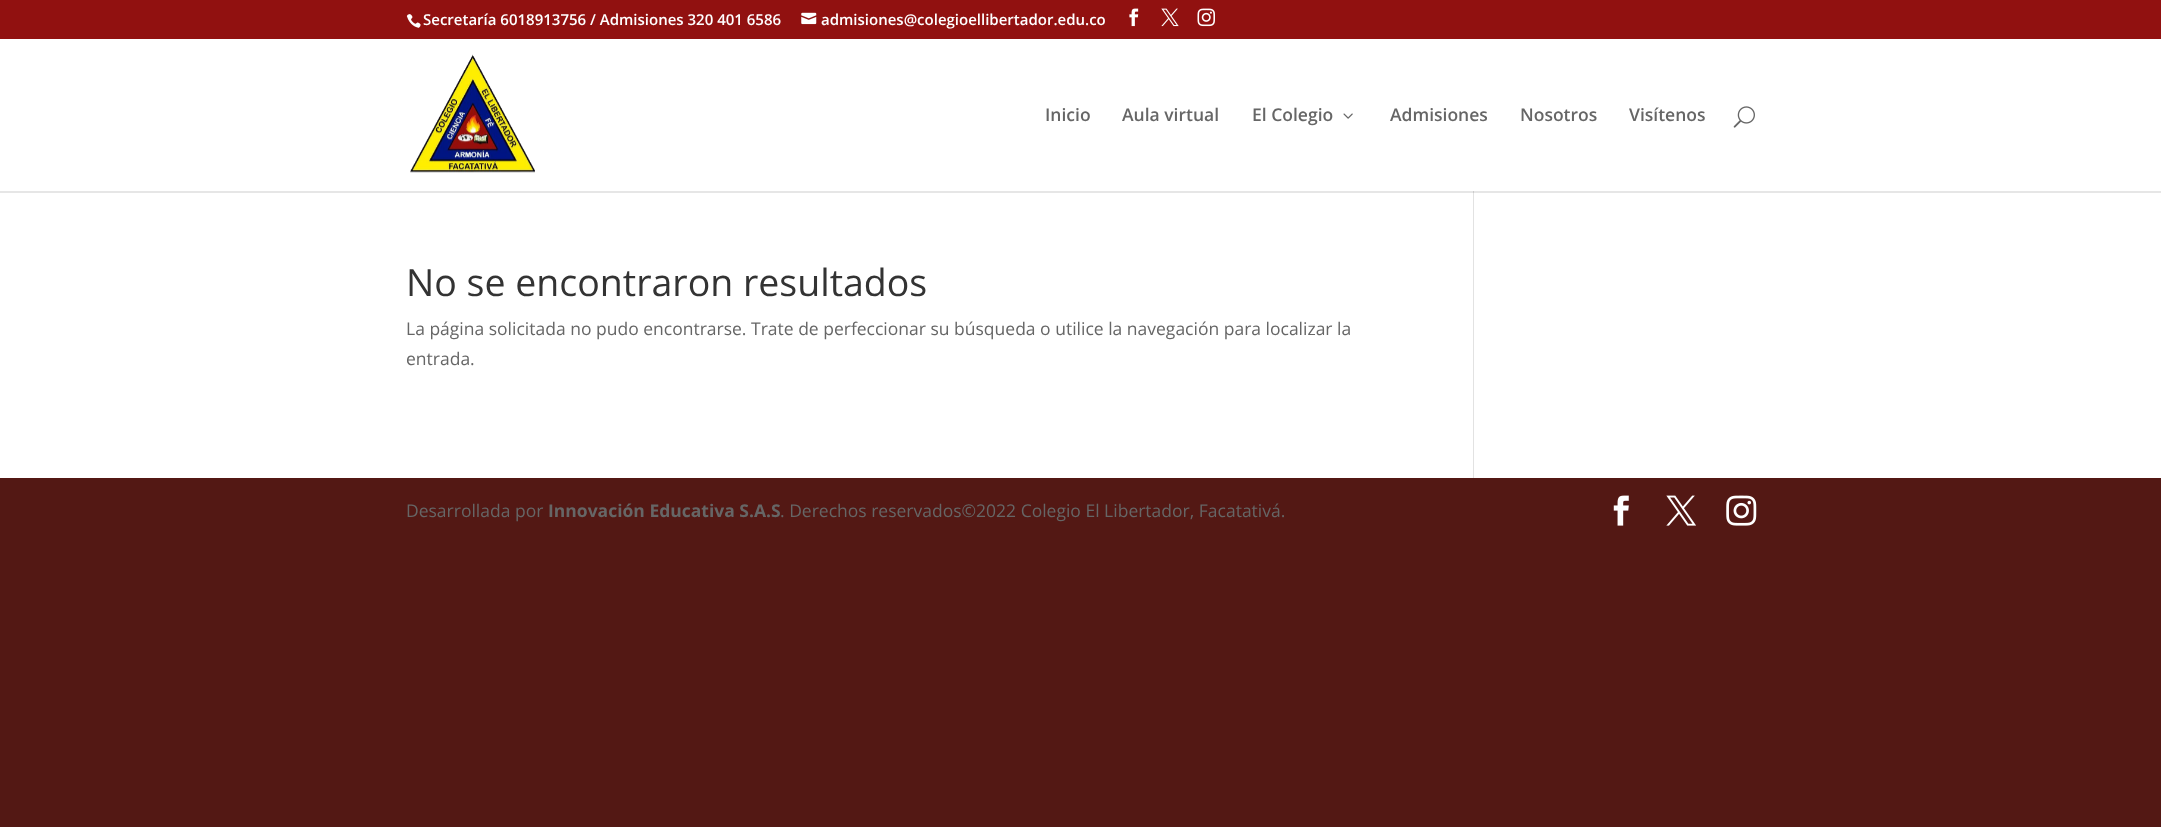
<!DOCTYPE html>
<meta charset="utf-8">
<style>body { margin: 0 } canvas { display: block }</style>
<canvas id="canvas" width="2161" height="827"></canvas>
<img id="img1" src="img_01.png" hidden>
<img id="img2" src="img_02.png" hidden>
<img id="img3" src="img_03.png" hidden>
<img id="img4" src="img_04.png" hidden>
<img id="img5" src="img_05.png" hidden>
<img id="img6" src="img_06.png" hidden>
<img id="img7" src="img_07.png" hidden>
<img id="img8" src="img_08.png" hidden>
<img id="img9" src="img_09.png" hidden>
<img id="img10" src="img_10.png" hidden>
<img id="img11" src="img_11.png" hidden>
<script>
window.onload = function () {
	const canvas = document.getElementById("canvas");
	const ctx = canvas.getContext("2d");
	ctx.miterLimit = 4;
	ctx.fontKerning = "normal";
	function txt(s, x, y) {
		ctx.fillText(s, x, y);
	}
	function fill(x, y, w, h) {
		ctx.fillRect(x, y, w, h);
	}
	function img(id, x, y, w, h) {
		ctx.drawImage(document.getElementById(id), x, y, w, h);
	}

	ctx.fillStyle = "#531814";
	fill(0, 0, 2161, 827);
	ctx.fillStyle = "#911110";
	fill(0, 0, 2161, 39);
	img("img1", 406, 14, 15, 14);
	img("img2", 801, 12, 16, 13);
	img("img3", 1129, 8, 10, 19);
	img("img4", 1161, 8, 18, 19);
	img("img5", 1197, 8, 18, 19);
	ctx.fillStyle = "#FFFFFF";
	fill(0, 39, 2161, 152);
	img("img6", 410, 54, 125, 119);
	img("img7", 1343, 113, 10, 6);
	img("img8", 1733, 106, 22, 22);
	fill(0, 193, 2161, 285);
	ctx.fillStyle = "#E6E6E6";
	fill(0, 191, 2161, 2);
	ctx.fillStyle = "#E2E2E2";
	fill(1473, 191, 1, 287);
	ctx.fillStyle = "#CBCBCB";
	fill(1473, 191, 1, 2);
	img("img9", 1613, 495, 16, 31);
	img("img10", 1666, 495, 30, 31);
	img("img11", 1726, 495, 31, 31);
	ctx.font = "600 15px Open Sans";
	ctx.fillStyle = "#FFFFFF";
	txt("Secretaría 6018913756 / Admisiones 320 401 6586", 423, 25);
	txt("admisiones@colegioellibertador.edu.co", 821, 25);
	ctx.font = "600 17.5px Open Sans";
	ctx.fillStyle = "#666666";
	txt("Inicio", 1045, 121);
	txt("Aula virtual", 1122, 121);
	txt("El Colegio", 1252, 121);
	txt("Admisiones", 1390, 121);
	txt("Nosotros", 1520, 121);
	txt("Visítenos", 1629, 121);
	ctx.font = "37.5px Open Sans";
	ctx.fillStyle = "#333333";
	txt("No se encontraron resultados", 406, 296);
	ctx.font = "17.5px Open Sans";
	ctx.fillStyle = "#666666";
	txt("La página solicitada no pudo encontrarse. Trate de perfeccionar su búsqueda o utilice la navegación para localizar la", 406, 335);
	txt("entrada.", 406, 365);
	txt("Desarrollada por", 406, 517);
	ctx.font = "bold 17.5px Open Sans";
	txt("Innovación Educativa S.A.S", 548, 517);
	ctx.font = "17.5px Open Sans";
	txt(". Derechos reservados©2022 Colegio El Libertador, Facatativá.", 780, 517);
};
</script>
